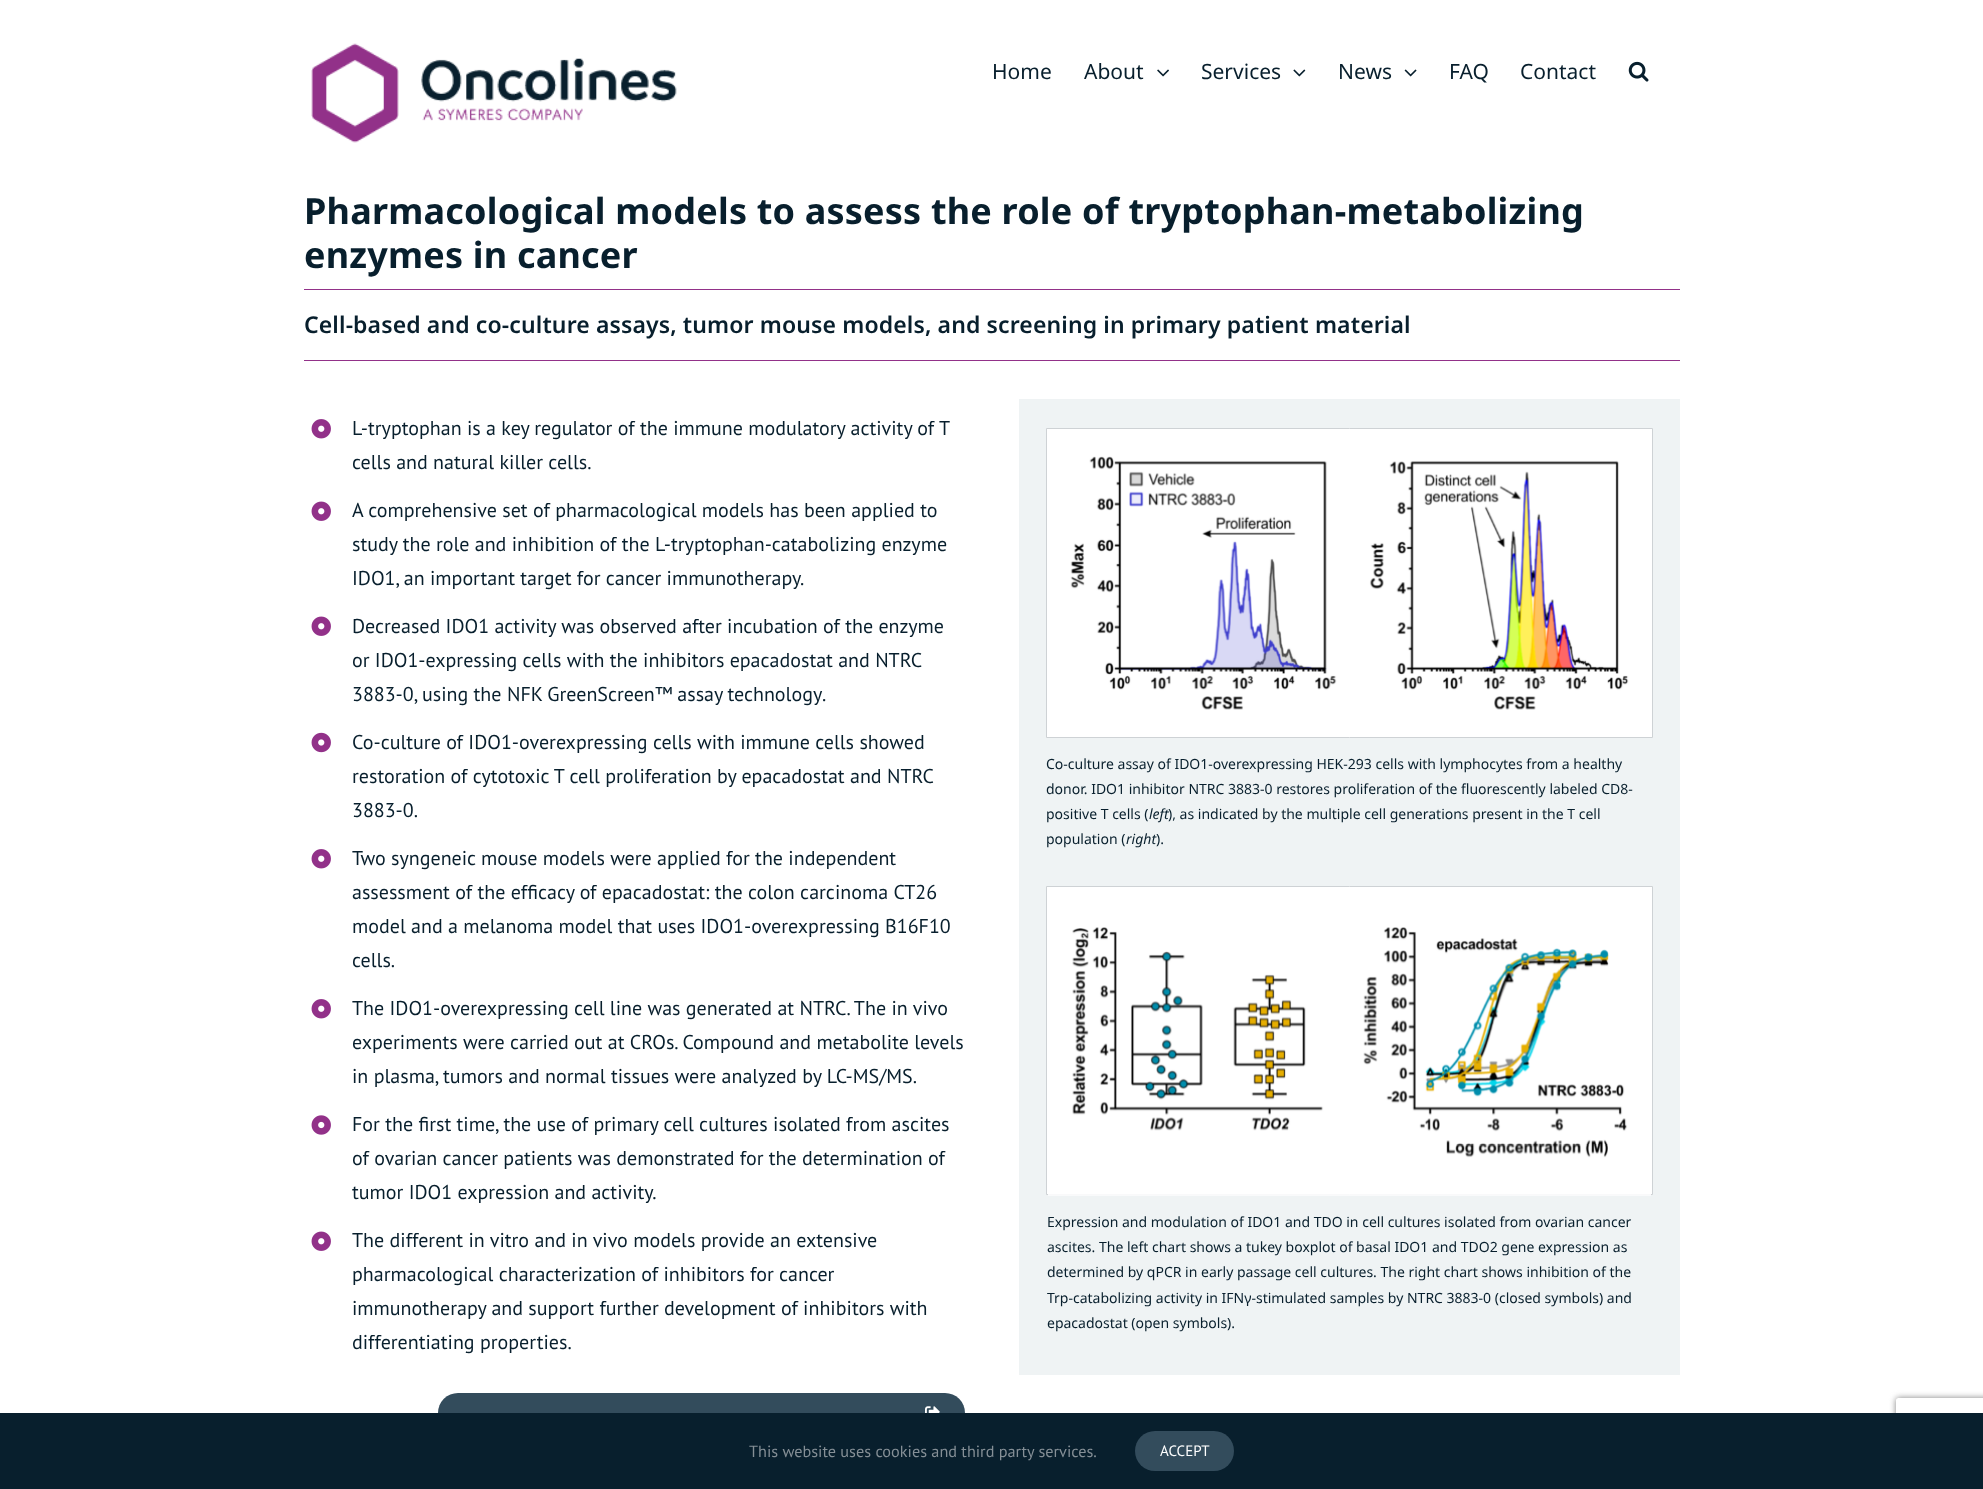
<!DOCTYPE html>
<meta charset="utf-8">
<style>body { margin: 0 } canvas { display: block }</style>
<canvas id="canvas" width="1983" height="1489"></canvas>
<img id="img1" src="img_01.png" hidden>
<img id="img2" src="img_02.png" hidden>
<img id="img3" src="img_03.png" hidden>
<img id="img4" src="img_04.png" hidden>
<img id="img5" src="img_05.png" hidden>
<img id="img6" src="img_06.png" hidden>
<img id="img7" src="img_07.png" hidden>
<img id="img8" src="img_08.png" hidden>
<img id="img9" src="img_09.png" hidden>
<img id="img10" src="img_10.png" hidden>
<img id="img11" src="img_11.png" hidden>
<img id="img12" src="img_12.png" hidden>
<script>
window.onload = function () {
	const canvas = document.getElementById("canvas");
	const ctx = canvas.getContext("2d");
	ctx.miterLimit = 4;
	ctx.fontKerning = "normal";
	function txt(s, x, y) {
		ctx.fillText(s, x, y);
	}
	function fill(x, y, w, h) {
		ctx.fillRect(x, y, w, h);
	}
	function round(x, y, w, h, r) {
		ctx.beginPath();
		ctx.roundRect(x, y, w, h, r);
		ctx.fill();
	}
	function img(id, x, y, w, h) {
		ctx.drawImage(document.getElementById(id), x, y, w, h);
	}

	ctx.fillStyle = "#FFFFFF";
	fill(0, 0, 1983, 1489);
	img("img1", 311, 43, 366, 100);
	img("img2", 1157, 69, 12, 8);
	img("img3", 1293, 69, 13, 8);
	img("img4", 1404, 69, 13, 8);
	img("img5", 1628, 61, 21, 21);
	ctx.fillStyle = "#923189";
	fill(304, 289, 1376, 1);
	fill(304, 360, 1376, 1);
	img("img6", 311, 419, 20, 20);
	img("img7", 311, 501, 20, 20);
	img("img7", 311, 616, 20, 20);
	img("img8", 311, 732, 20, 21);
	img("img6", 311, 849, 20, 20);
	img("img6", 311, 999, 20, 20);
	img("img9", 311, 1115, 20, 20);
	img("img7", 311, 1231, 20, 20);
	ctx.fillStyle = "#334C5C";
	round(438, 1393, 527, 40, 20);
	img("img10", 925, 1406, 15, 7);
	ctx.fillStyle = "#EFF3F4";
	fill(1019, 399, 661, 976);
	ctx.fillStyle = "#FFFFFF";
	ctx.beginPath();
	ctx.rect(1046.5, 428.5, 606, 309);
	ctx.fill();
	ctx.strokeStyle = "#CED2D5";
	ctx.stroke();
	img("img11", 1070, 456, 559, 254);
	ctx.beginPath();
	ctx.rect(1046.5, 886.5, 606, 308);
	ctx.fill();
	ctx.stroke();
	img("img12", 1048, 927, 603, 269);
	ctx.save();
	ctx.beginPath();
	ctx.moveTo(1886, 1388);
	ctx.lineTo(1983, 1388);
	ctx.lineTo(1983, 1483);
	ctx.lineTo(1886, 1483);
	ctx.closePath();
	ctx.moveTo(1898.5, 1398);
	ctx.lineTo(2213.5, 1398);
	ctx.bezierCurveTo(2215, 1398, 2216, 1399, 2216, 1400.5);
	ctx.lineTo(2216, 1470.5);
	ctx.bezierCurveTo(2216, 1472, 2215, 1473, 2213.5, 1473);
	ctx.lineTo(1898.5, 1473);
	ctx.bezierCurveTo(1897, 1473, 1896, 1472, 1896, 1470.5);
	ctx.lineTo(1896, 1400.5);
	ctx.bezierCurveTo(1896, 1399, 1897, 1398, 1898.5, 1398);
	ctx.closePath();
	ctx.clip("evenodd");
	ctx.fillStyle = "#808080";
	ctx.filter = "blur(3px)";
	ctx.beginPath();
	ctx.roundRect(1896, 1398, 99, 75, 2.5);
	ctx.fill();
	ctx.filter = "none";
	ctx.restore();
	ctx.fillStyle = "#081F2D";
	fill(0, 1413, 1983, 76);
	ctx.fillStyle = "#334C5C";
	round(1135, 1431, 99, 40, 20);
	ctx.font = "21px Noto Sans";
	ctx.fillStyle = "#081F2D";
	txt("Home", 992, 79);
	txt("About", 1084, 79);
	txt("Services", 1201, 79);
	txt("News", 1338, 79);
	txt("FAQ", 1449, 79);
	txt("Contact", 1520, 79);
	ctx.letterSpacing = "0.2px";
	ctx.font = "bold 36px Noto Sans";
	txt("Pharmacological models to assess the role of tryptophan-metabolizing", 304, 224);
	txt("enzymes in cancer", 304, 268);
	ctx.letterSpacing = "0.12px";
	ctx.font = "600 23px Noto Sans";
	txt("Cell-based and co-culture assays, tumor mouse models, and screening in primary patient material", 304, 333);
	ctx.letterSpacing = "0px";
	ctx.font = "20px PT Sans";
	txt("L-tryptophan is a key regulator of the immune modulatory activity of T", 352, 435);
	txt("cells and natural killer cells.", 352, 469);
	txt("A comprehensive set of pharmacological models has been applied to", 352, 517);
	txt("study the role and inhibition of the L-tryptophan-catabolizing enzyme", 352, 551);
	txt("IDO1, an important target for cancer immunotherapy.", 352, 585);
	txt("Decreased IDO1 activity was observed after incubation of the enzyme", 352, 633);
	txt("or IDO1-expressing cells with the inhibitors epacadostat and NTRC", 352, 667);
	txt("3883-0, using the", 352, 701);
	ctx.wordSpacing = "-0.5px";
	txt("NFK GreenScreen™ assay technology", 507, 701);
	ctx.wordSpacing = "0px";
	txt(".", 822, 701);
	txt("Co-culture of IDO1-overexpressing cells with immune cells showed", 352, 749);
	txt("restoration of cytotoxic T cell proliferation by epacadostat and NTRC", 352, 783);
	txt("3883-0.", 352, 817);
	txt("Two syngeneic mouse models were applied for the independent", 352, 865);
	txt("assessment of the efficacy of epacadostat: the colon carcinoma CT26", 352, 899);
	txt("model and a melanoma model that uses IDO1-overexpressing B16F10", 352, 933);
	txt("cells.", 352, 967);
	txt("The IDO1-overexpressing cell line was generated at NTRC. The in vivo", 352, 1015);
	txt("experiments were carried out at CROs. Compound and metabolite levels", 352, 1049);
	txt("in plasma, tumors and normal tissues were analyzed by LC-MS/MS.", 352, 1083);
	txt("For the first time, the use of primary cell cultures isolated from ascites", 352, 1131);
	txt("of ovarian cancer patients was demonstrated for the determination of", 352, 1165);
	txt("tumor IDO1 expression and activity.", 352, 1199);
	txt("The different in vitro and in vivo models provide an extensive", 352, 1247);
	txt("pharmacological characterization of inhibitors for cancer", 352, 1281);
	txt("immunotherapy and support further development of inhibitors with", 352, 1315);
	txt("differentiating properties.", 352, 1349);
	ctx.font = "14px Noto Sans";
	txt("Co-culture assay of IDO1-overexpressing HEK-293 cells with lymphocytes from a healthy", 1046, 769);
	txt("donor. IDO1 inhibitor NTRC 3883-0 restores proliferation of the fluorescently labeled CD8-", 1046, 794);
	txt("positive T cells (", 1046, 819);
	ctx.font = "italic 14px Noto Sans";
	txt("left", 1149, 819);
	ctx.font = "14px Noto Sans";
	txt("), as indicated by the multiple cell generations present in the T cell", 1168, 819);
	txt("population (", 1046, 844);
	ctx.font = "italic 14px Noto Sans";
	txt("right", 1126, 844);
	ctx.font = "14px Noto Sans";
	txt(").", 1156, 844);
	txt("Expression and modulation of IDO1 and TDO in cell cultures isolated from ovarian cancer", 1047, 1227);
	txt("ascites. The left chart shows a tukey boxplot of basal IDO1 and TDO2 gene expression as", 1047, 1252);
	txt("determined by qPCR in early passage cell cultures. The right chart shows inhibition of the", 1047, 1277);
	txt("Trp-catabolizing activity in IFNγ-stimulated samples by NTRC 3883-0 (closed symbols) and", 1047, 1303);
	txt("epacadostat (open symbols).", 1047, 1328);
	ctx.font = "16.25px PT Sans";
	ctx.fillStyle = "#858F96";
	txt("This website uses cookies and third party services.", 749, 1457);
	ctx.font = "15px PT Sans";
	ctx.fillStyle = "#FFFFFF";
	txt("ACCEPT", 1160, 1456);
};
</script>
